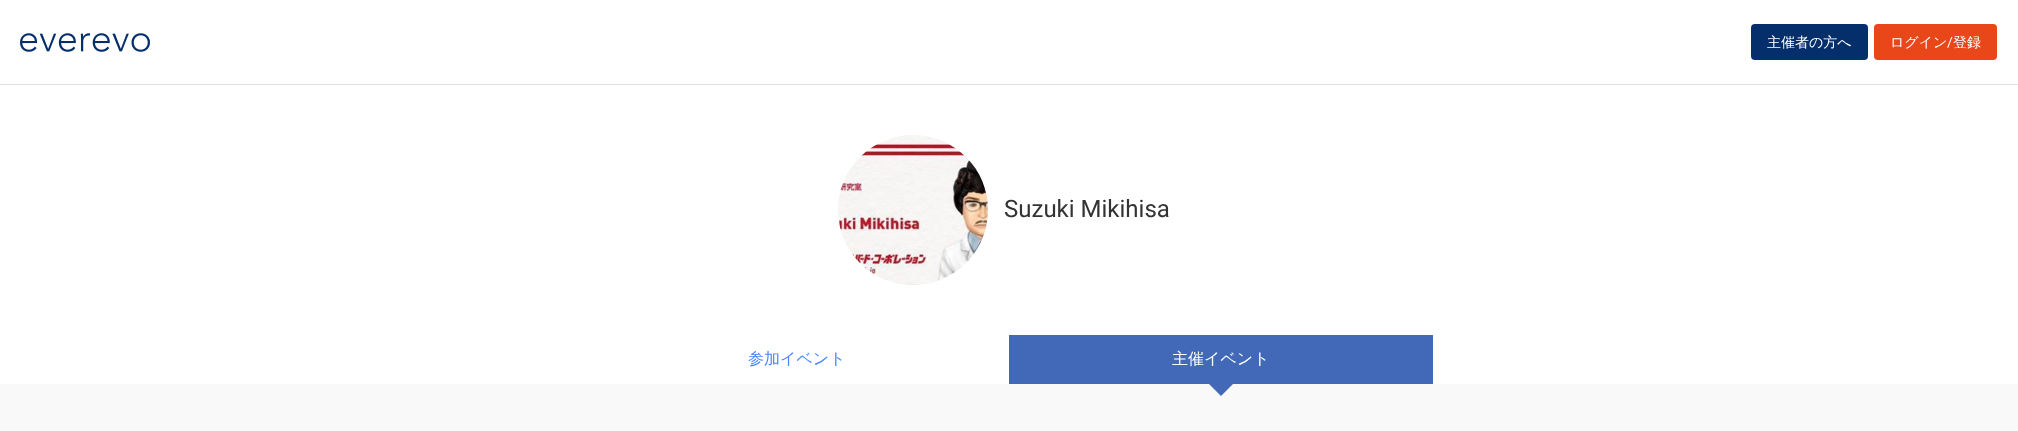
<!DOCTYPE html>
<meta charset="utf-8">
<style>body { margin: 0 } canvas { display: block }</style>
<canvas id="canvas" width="2018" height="431"></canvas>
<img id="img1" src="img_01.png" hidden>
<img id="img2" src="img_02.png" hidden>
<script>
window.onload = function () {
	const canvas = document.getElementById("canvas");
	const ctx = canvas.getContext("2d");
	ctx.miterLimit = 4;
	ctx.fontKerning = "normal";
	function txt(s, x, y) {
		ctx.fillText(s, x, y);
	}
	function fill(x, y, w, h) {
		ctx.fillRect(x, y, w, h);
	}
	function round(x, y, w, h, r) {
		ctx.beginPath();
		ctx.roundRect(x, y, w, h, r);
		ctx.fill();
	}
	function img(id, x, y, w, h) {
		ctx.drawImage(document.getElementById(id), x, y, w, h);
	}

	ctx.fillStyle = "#FFFFFF";
	fill(0, 0, 2018, 431);
	ctx.fillStyle = "#E1E1E1";
	fill(0, 84, 2018, 1);
	img("img1", 20, 33, 130, 19);
	ctx.fillStyle = "#052F6B";
	round(1751, 24, 117, 36, 4);
	ctx.fillStyle = "#E94619";
	round(1874, 24, 123, 36, 4);
	img("img2", 838, 135, 150, 150);
	ctx.fillStyle = "#F9F9F9";
	fill(0, 384, 2018, 47);
	ctx.fillStyle = "#4169B8";
	fill(1009, 335, 424, 49);
	ctx.beginPath();
	ctx.moveTo(1209, 384);
	ctx.lineTo(1233, 384);
	ctx.lineTo(1221, 396);
	ctx.closePath();
	ctx.fill();
	ctx.font = "500 14px WenQuanYi Zen Hei";
	ctx.fillStyle = "#FFFFFF";
	txt("主催者の方へ", 1767, 47);
	txt("ログイン", 1890, 47);
	ctx.font = "14px Roboto";
	txt("/", 1947, 47);
	ctx.font = "500 14px WenQuanYi Zen Hei";
	txt("登録", 1953, 47);
	ctx.font = "24px Roboto";
	ctx.fillStyle = "#333333";
	txt("Suzuki Mikihisa", 1004, 217);
	ctx.font = "500 16px WenQuanYi Zen Hei";
	ctx.fillStyle = "#4686FF";
	txt("参加イベント", 748, 364);
	ctx.fillStyle = "#FFFFFF";
	txt("主催イベント", 1172, 364);
};
</script>
